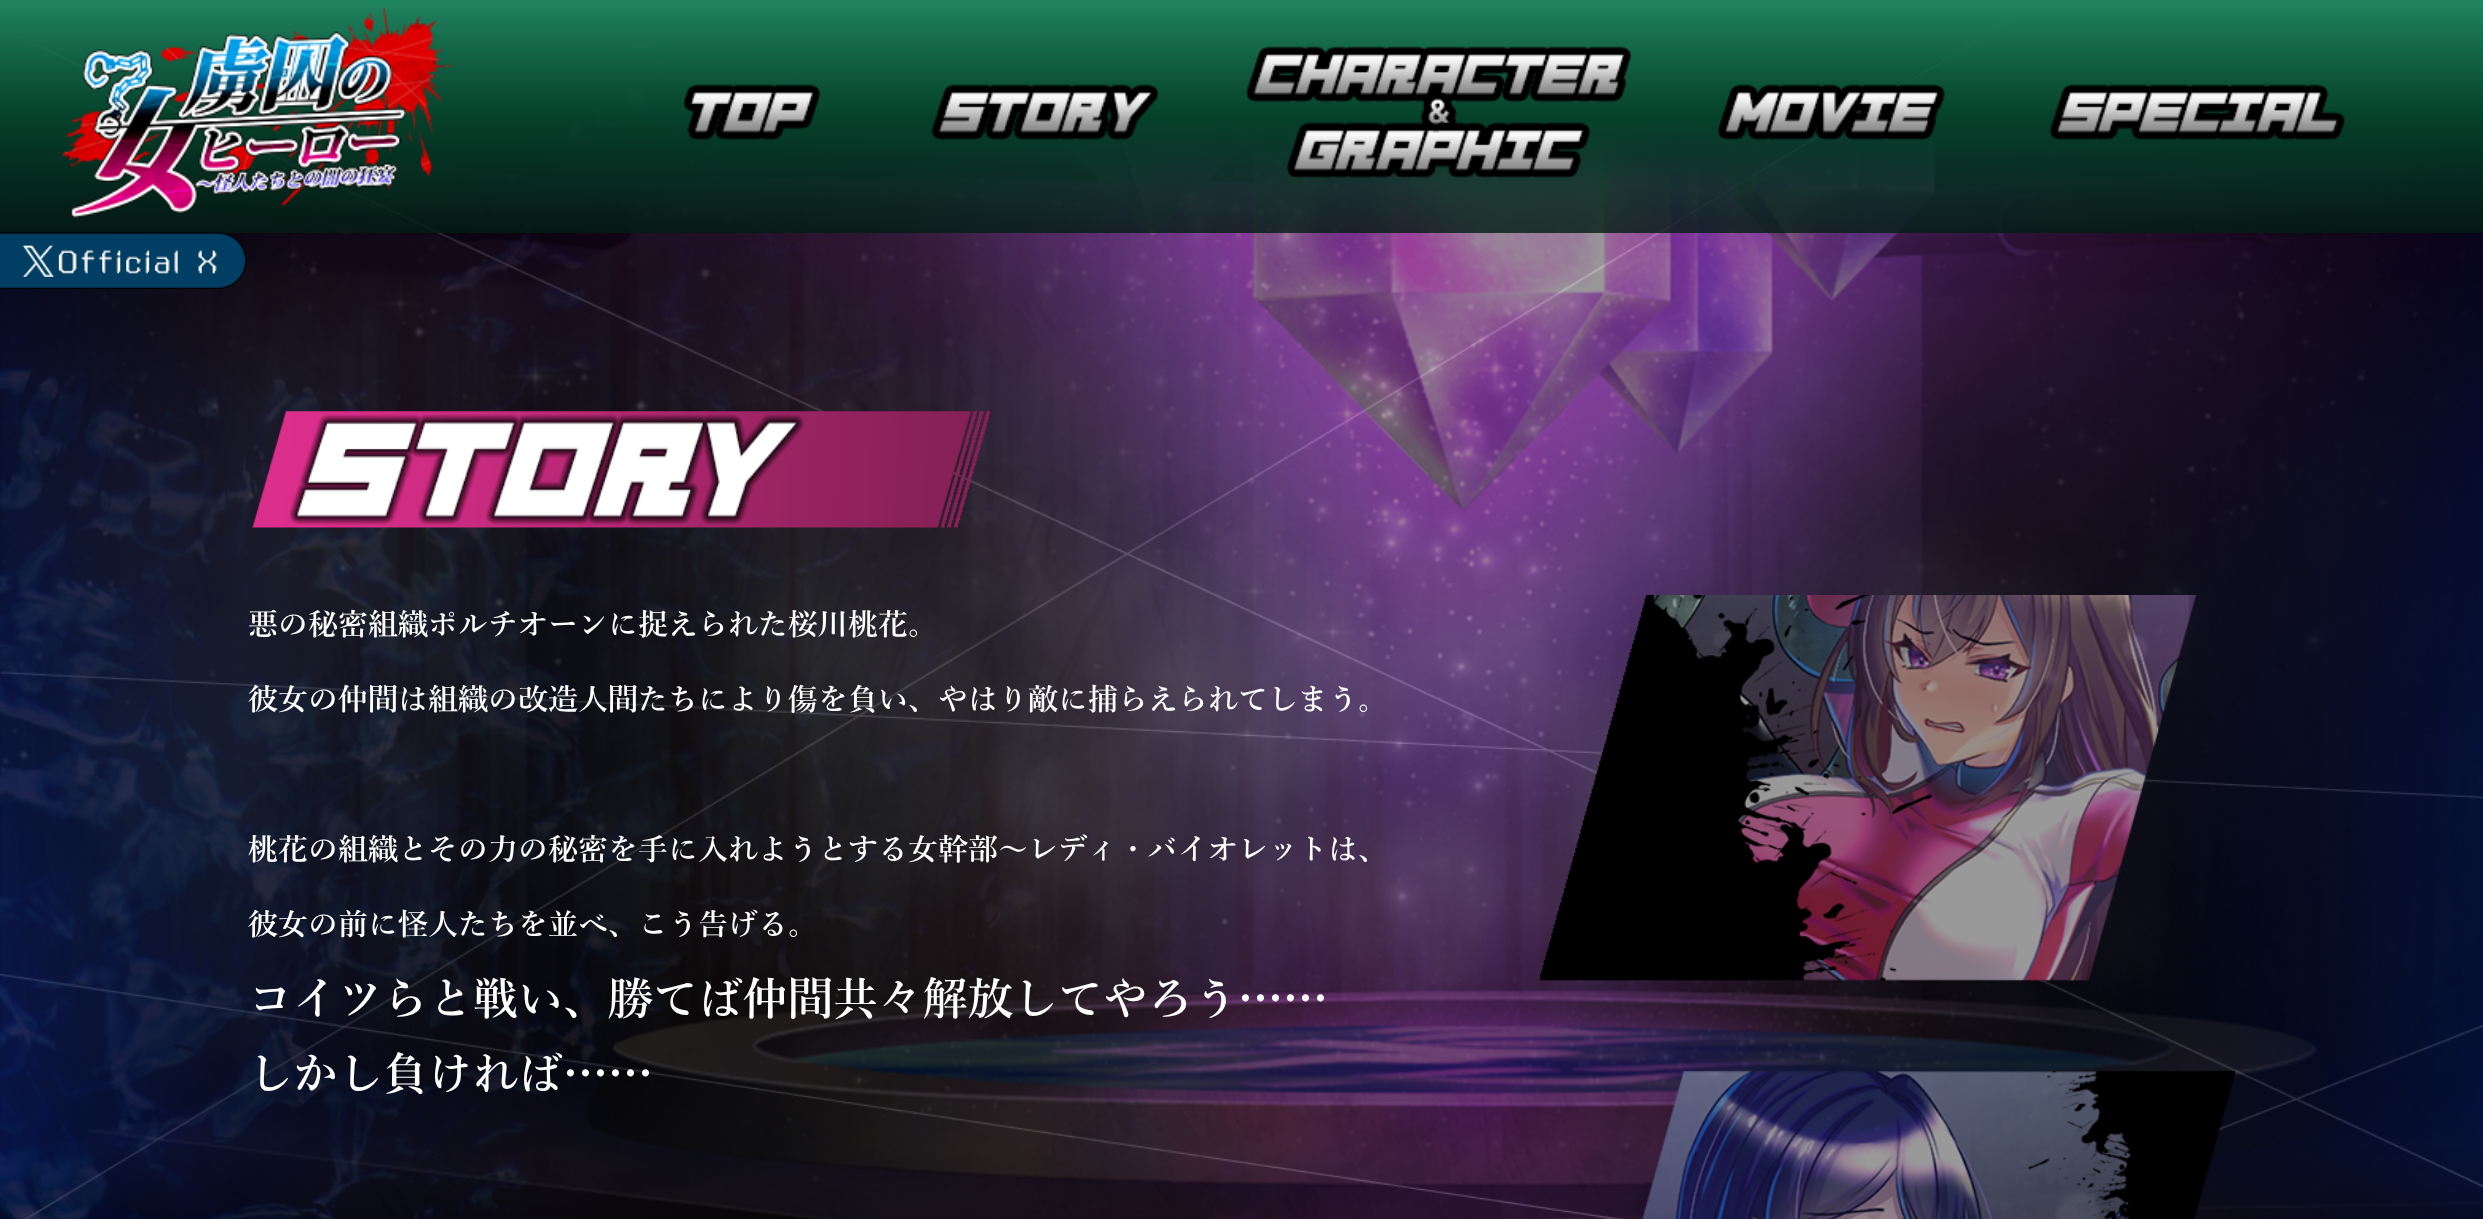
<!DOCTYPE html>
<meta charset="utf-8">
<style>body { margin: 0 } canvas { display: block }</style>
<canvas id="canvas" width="2483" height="1219"></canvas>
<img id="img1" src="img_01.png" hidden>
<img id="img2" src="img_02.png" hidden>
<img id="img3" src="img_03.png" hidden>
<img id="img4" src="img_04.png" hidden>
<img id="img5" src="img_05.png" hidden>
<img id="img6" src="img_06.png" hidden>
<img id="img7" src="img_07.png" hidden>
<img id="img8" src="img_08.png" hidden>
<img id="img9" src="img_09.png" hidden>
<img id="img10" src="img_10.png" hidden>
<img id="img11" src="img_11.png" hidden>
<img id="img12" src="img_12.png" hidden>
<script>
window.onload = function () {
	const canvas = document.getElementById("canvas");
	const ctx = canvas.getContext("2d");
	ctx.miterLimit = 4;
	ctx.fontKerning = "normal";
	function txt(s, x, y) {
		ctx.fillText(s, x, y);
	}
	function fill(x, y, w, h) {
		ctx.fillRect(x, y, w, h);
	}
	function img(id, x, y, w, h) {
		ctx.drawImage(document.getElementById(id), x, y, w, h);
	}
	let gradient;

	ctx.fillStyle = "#FFFFFF";
	fill(0, 0, 2483, 1219);
	img("img1", 0, 7, 2483, 1212);
	img("img2", 0, 122, 2483, 1097);
	gradient = ctx.createLinearGradient(1242, 0, 1242, 233);
	gradient.addColorStop(0, "#208460");
	gradient.addColorStop(0.5, "rgba(6, 72, 48, 0.9)");
	gradient.addColorStop(1, "rgba(3, 28, 19, 0.8)");
	ctx.fillStyle = gradient;
	fill(0, 0, 2483, 233);
	img("img3", 62, 7, 393, 211);
	img("img4", 683, 84, 138, 57);
	img("img5", 931, 84, 228, 57);
	img("img6", 1245, 46, 387, 132);
	img("img7", 1717, 84, 229, 57);
	img("img8", 2049, 84, 296, 57);
	img("img9", 0, 232, 247, 57);
	img("img10", 252, 411, 738, 117);
	img("img11", 289, 414, 516, 111);
	img("img12", 1540, 595, 695, 624);
	ctx.font = "600 30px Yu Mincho";
	ctx.fillStyle = "#FFFFFF";
	txt("悪の秘密組織ポルチオーンに捉えられた桜川桃花。", 248, 635);
	txt("彼女の仲間は組織の改造人間たちにより傷を負い、やはり敵に捕らえられてしまう。", 248, 710);
	txt("桃花の組織とその力の秘密を手に入れようとする女幹部～レディ・バイオレットは、", 248, 860);
	txt("彼女の前に怪人たちを並べ、こう告げる。", 248, 935);
	ctx.font = "600 45px Yu Mincho";
	txt("コイツらと戦い、勝てば仲間共々解放してやろう……", 248, 1015);
	txt("しかし負ければ……", 248, 1090);
};
</script>
